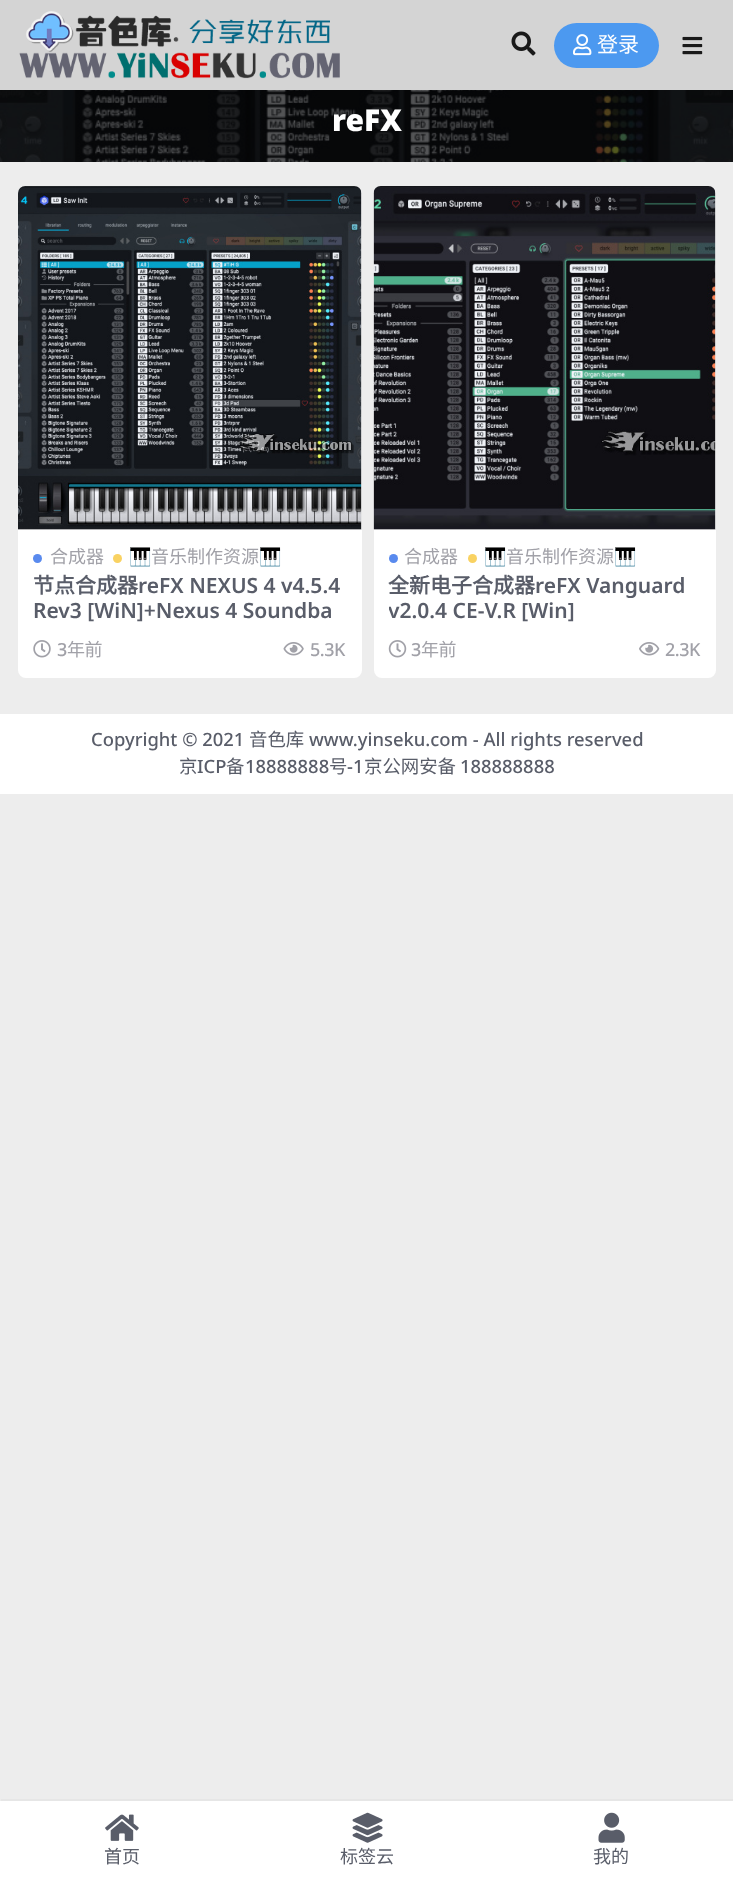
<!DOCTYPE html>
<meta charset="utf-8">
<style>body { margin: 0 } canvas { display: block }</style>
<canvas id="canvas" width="733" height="1877"></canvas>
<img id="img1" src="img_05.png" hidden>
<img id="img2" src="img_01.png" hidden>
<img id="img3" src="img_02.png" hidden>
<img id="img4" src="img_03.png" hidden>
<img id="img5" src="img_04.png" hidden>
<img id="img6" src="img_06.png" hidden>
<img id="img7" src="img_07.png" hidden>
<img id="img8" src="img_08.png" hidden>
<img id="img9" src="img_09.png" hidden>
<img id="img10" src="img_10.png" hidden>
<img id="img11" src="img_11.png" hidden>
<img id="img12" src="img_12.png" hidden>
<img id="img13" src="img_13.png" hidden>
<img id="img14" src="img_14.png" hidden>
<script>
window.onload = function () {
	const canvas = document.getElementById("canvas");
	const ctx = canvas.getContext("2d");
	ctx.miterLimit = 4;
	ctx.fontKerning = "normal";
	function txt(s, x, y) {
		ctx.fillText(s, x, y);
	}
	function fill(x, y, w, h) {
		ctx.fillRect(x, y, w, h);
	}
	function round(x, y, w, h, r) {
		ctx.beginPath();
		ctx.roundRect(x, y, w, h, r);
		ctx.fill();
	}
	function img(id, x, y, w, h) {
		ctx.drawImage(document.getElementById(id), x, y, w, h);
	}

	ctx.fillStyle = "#EDEDED";
	fill(0, 0, 733, 1877);
	img("img1", 0, 90, 733, 72);
	ctx.fillStyle = "rgba(0, 0, 0, 0.07)";
	ctx.filter = "blur(22.5px)";
	ctx.beginPath();
	ctx.rect(0, 0, 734, 90);
	ctx.fill();
	ctx.filter = "none";
	ctx.fillStyle = "#D4D4D4";
	fill(0, 0, 733, 90);
	img("img2", 19, 11, 321, 68);
	img("img3", 511, 31, 25, 25);
	ctx.fillStyle = "#4C99F0";
	round(554, 23, 105, 45, 22.5);
	img("img4", 573, 34, 19, 22);
	img("img5", 682, 36, 21, 19);
	ctx.fillStyle = "#FFFFFF";
	round(18, 186, 344, 492, 8);
	ctx.fillStyle = "#E7E7E7";
	ctx.beginPath();
	ctx.roundRect(18, 186, 344, 344, [8, 8, 0, 0]);
	ctx.fill();
	img("img6", 18, 186, 344, 344);
	ctx.fillStyle = "#598AEE";
	ctx.beginPath();
	ctx.arc(37.5, 558.5, 4.5, 0, Math.PI * 2);
	ctx.fill();
	ctx.fillStyle = "#F9D262";
	ctx.beginPath();
	ctx.arc(117.5, 558.5, 4.5, 0, Math.PI * 2);
	ctx.fill();
	img("img7", 33, 640, 18, 18);
	img("img8", 283, 642, 21, 14);
	ctx.fillStyle = "#FFFFFF";
	round(374, 186, 342, 492, 8);
	ctx.fillStyle = "#E7E7E7";
	ctx.beginPath();
	ctx.roundRect(374, 186, 342, 344, [8, 8, 0, 0]);
	ctx.fill();
	img("img9", 373, 186, 343, 344);
	ctx.fillStyle = "#598AEE";
	ctx.beginPath();
	ctx.arc(393.5, 558.5, 4.5, 0, Math.PI * 2);
	ctx.fill();
	ctx.fillStyle = "#F9D262";
	ctx.beginPath();
	ctx.arc(472.5, 558.5, 4.5, 0, Math.PI * 2);
	ctx.fill();
	img("img10", 388, 640, 19, 18);
	img("img11", 639, 642, 21, 14);
	ctx.fillStyle = "#FFFFFF";
	fill(0, 714, 733, 80);
	fill(0, 1799, 733, 78);
	ctx.fillStyle = "#E6E6E6";
	round(0, 1799, 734, 2, 1);
	img("img12", 105, 1814, 34, 27);
	img("img13", 352, 1812, 31, 31);
	img("img14", 598, 1812, 27, 31);
	ctx.font = "21px Noto Sans CJK SC";
	ctx.fillStyle = "#FFFFFF";
	txt("登录", 597, 52);
	ctx.font = "900 30px Noto Sans";
	txt("reFX", 332, 131);
	ctx.font = "18px Noto Sans CJK SC";
	ctx.fillStyle = "#A1A1A8";
	txt("合成器", 50, 563);
	ctx.font = "18px Noto Color Emoji";
	txt("🎹", 129, 563);
	ctx.font = "18px Noto Sans CJK SC";
	txt("音乐制作资源", 151, 563);
	ctx.font = "18px Noto Color Emoji";
	txt("🎹", 259, 563);
	ctx.font = "bold 21px Noto Sans CJK SC";
	ctx.fillStyle = "#595D69";
	txt("节点合成器", 33, 593);
	ctx.font = "600 21px Noto Sans";
	txt("reFX NEXUS 4 v4.5.4", 138, 593);
	txt("Rev3 [WiN]+Nexus 4 Soundba", 33, 618);
	ctx.letterSpacing = "-0.5px";
	ctx.font = "500 18px Noto Sans";
	ctx.fillStyle = "#A1A1A8";
	txt("3", 57, 656);
	ctx.font = "18px Noto Sans CJK SC";
	txt("年前", 67, 656);
	ctx.font = "500 18px Noto Sans";
	txt("5.3K", 310, 656);
	ctx.letterSpacing = "0px";
	ctx.font = "18px Noto Sans CJK SC";
	txt("合成器", 404, 563);
	ctx.font = "18px Noto Color Emoji";
	txt("🎹", 484, 563);
	ctx.font = "18px Noto Sans CJK SC";
	txt("音乐制作资源", 506, 563);
	ctx.font = "18px Noto Color Emoji";
	txt("🎹", 614, 563);
	ctx.font = "bold 21px Noto Sans CJK SC";
	ctx.fillStyle = "#595D69";
	txt("全新电子合成器", 388, 593);
	ctx.font = "600 21px Noto Sans";
	txt("reFX Vanguard", 535, 593);
	ctx.save();
	ctx.beginPath();
	ctx.rect(389, 575, 312, 49);
	ctx.clip();
	txt("v2.0.4 CE-V.R [Win]", 388, 618);
	ctx.restore();
	ctx.letterSpacing = "-0.5px";
	ctx.font = "500 18px Noto Sans";
	ctx.fillStyle = "#A1A1A8";
	txt("3", 411, 656);
	ctx.font = "18px Noto Sans CJK SC";
	txt("年前", 421, 656);
	ctx.font = "500 18px Noto Sans";
	txt("2.3K", 665, 656);
	ctx.letterSpacing = "0px";
	ctx.font = "500 18.4px Noto Sans";
	ctx.fillStyle = "#595D69";
	txt("Copyright © 2021", 91, 746);
	ctx.font = "18.4px Noto Sans CJK SC";
	txt("音色库", 249, 746);
	ctx.font = "500 18.4px Noto Sans";
	txt("www.yinseku.com - All rights reserved", 309, 746);
	ctx.font = "18.4px Noto Sans CJK SC";
	txt("京", 179, 773);
	ctx.font = "500 18.4px Noto Sans";
	txt("ICP", 197, 773);
	ctx.font = "18.4px Noto Sans CJK SC";
	txt("备", 226, 773);
	ctx.font = "500 18.4px Noto Sans";
	txt("18888888", 245, 773);
	ctx.font = "18.4px Noto Sans CJK SC";
	txt("号", 329, 773);
	ctx.font = "500 18.4px Noto Sans";
	txt("-1", 347, 773);
	ctx.font = "18.4px Noto Sans CJK SC";
	txt("京公网安备", 364, 773);
	ctx.font = "500 18.4px Noto Sans";
	txt("188888888", 460, 773);
	ctx.font = "18px Noto Sans CJK SC";
	txt("首页", 104, 1863);
	txt("标签云", 340, 1863);
	txt("我的", 593, 1863);
};
</script>
